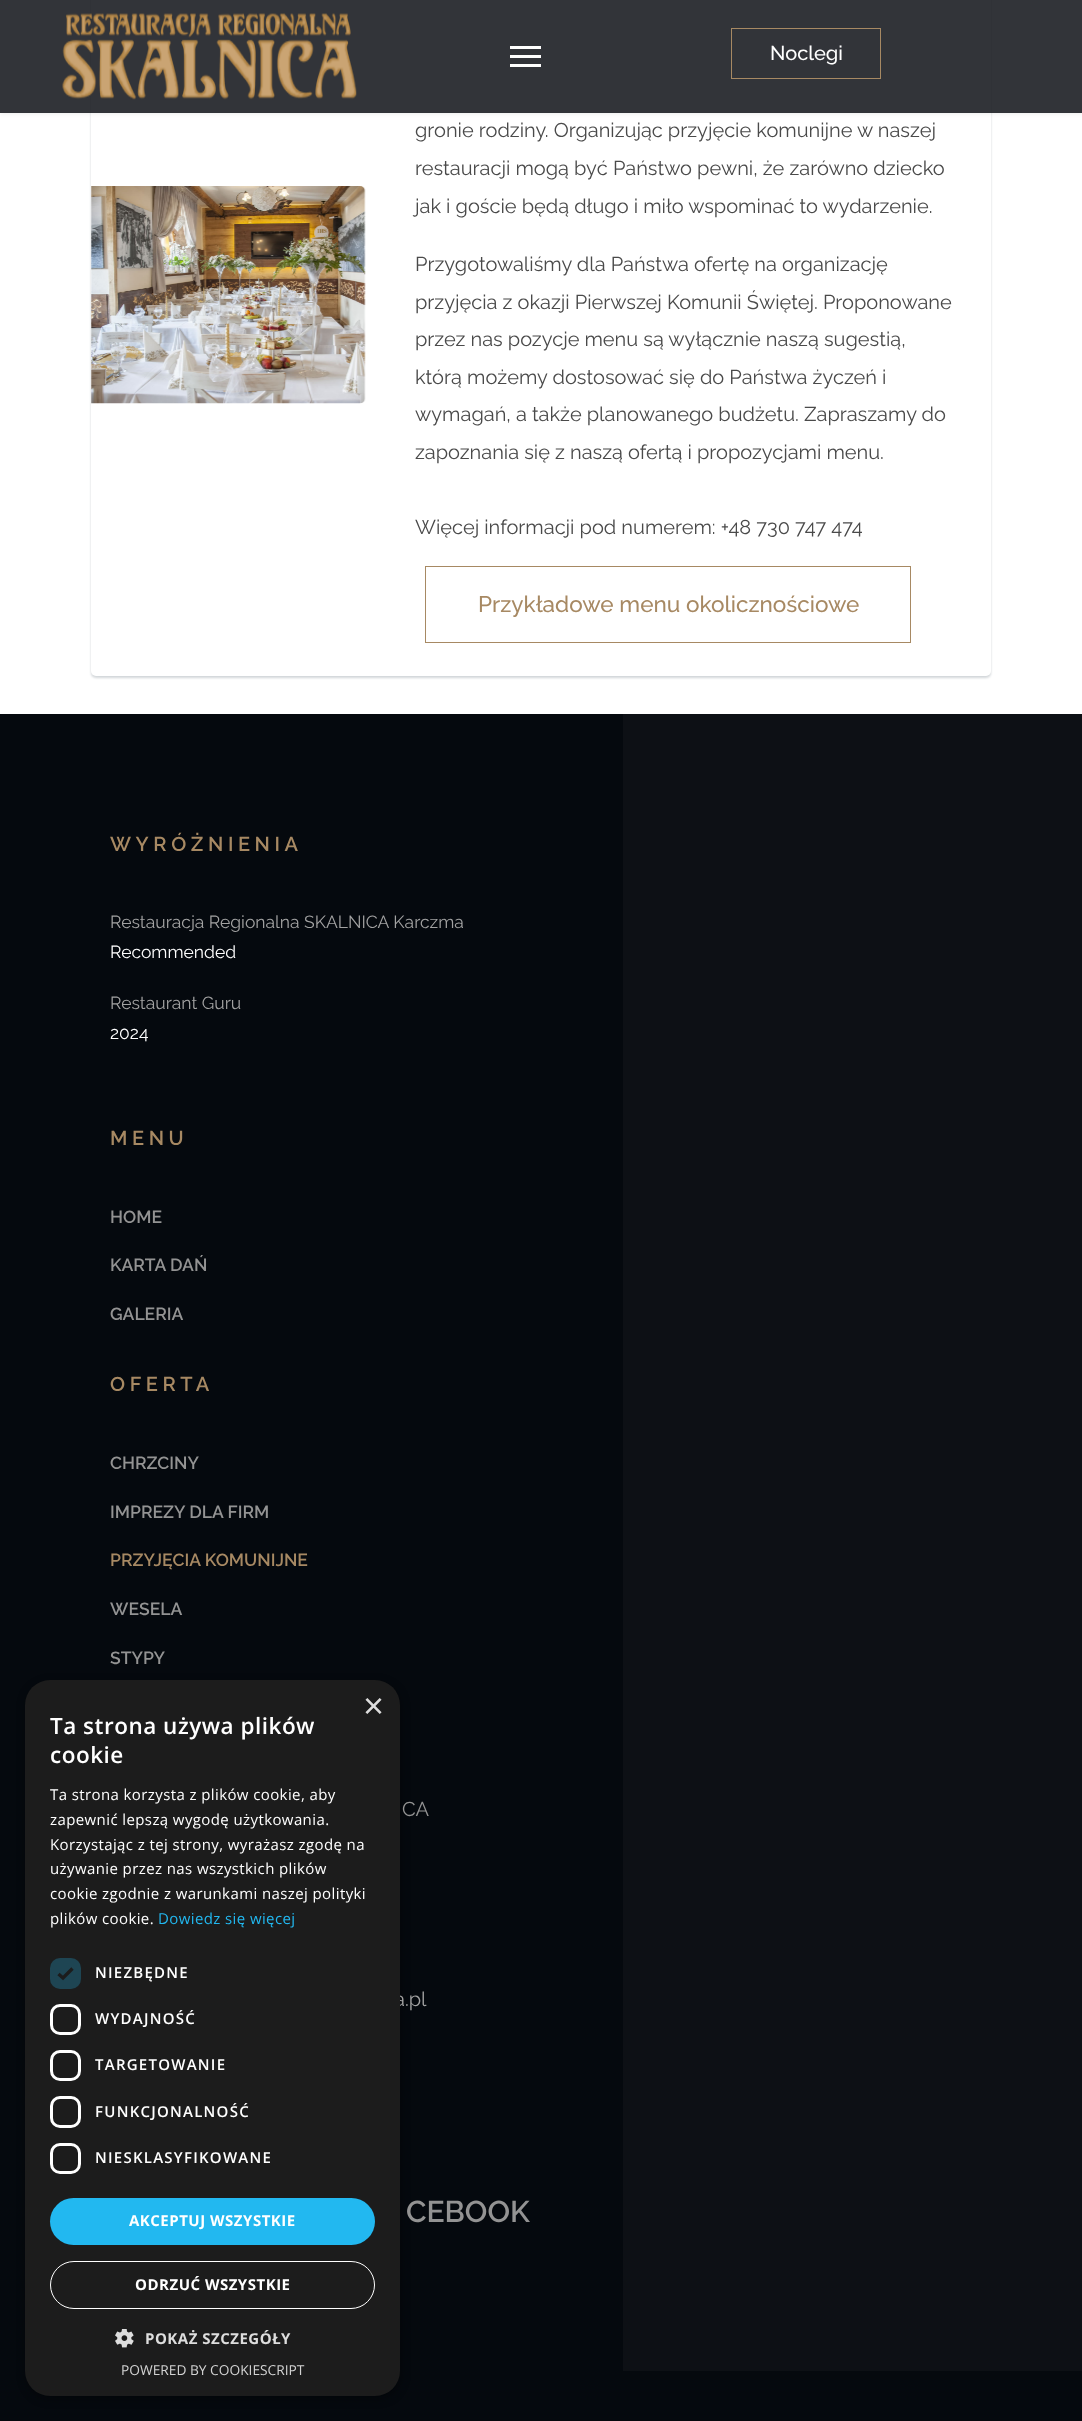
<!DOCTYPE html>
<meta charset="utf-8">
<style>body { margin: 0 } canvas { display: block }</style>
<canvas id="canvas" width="1082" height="2421"></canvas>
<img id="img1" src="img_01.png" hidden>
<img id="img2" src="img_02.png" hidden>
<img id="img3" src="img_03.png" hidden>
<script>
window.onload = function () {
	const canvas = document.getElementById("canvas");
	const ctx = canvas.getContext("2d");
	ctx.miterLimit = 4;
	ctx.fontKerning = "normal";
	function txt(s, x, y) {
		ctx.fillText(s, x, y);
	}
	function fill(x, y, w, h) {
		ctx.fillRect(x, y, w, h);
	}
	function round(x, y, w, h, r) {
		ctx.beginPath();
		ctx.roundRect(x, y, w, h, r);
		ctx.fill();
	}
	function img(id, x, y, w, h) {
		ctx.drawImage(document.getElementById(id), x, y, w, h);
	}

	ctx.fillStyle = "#FFFFFF";
	fill(0, 0, 1082, 2421);
	ctx.fillStyle = "rgba(30, 51, 67, 0.2)";
	ctx.filter = "blur(1px)";
	ctx.beginPath();
	ctx.roundRect(91, -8, 900, 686, 5);
	ctx.fill();
	ctx.filter = "none";
	ctx.fillStyle = "#FFFFFF";
	round(91, -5, 900, 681, 5);
	ctx.save();
	ctx.beginPath();
	ctx.moveTo(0, 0);
	ctx.lineTo(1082, 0);
	ctx.lineTo(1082, 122);
	ctx.lineTo(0, 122);
	ctx.closePath();
	ctx.moveTo(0, 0);
	ctx.lineTo(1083, 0);
	ctx.lineTo(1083, 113);
	ctx.lineTo(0, 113);
	ctx.closePath();
	ctx.clip("evenodd");
	ctx.fillStyle = "rgba(0, 0, 0, 0.1)";
	ctx.filter = "blur(2.5px)";
	ctx.beginPath();
	ctx.rect(0, 0, 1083, 113);
	ctx.fill();
	ctx.filter = "none";
	ctx.restore();
	ctx.fillStyle = "rgba(14, 17, 22, 0.85)";
	fill(0, 0, 1082, 113);
	img("img1", 62, 13, 295, 87);
	ctx.fillStyle = "#FFFFFF";
	fill(510, 46, 31, 3);
	fill(510, 55, 31, 3);
	fill(510, 64, 31, 3);
	ctx.strokeStyle = "#A78963";
	ctx.strokeRect(731.5, 28.5, 149, 50);
	img("img2", 91, 186, 275, 218);
	ctx.strokeRect(425.5, 566.5, 485, 76);
	ctx.fillStyle = "#05090E";
	fill(0, 714, 623, 1657);
	ctx.fillStyle = "#0D1015";
	fill(623, 714, 459, 1657);
	ctx.fillStyle = "#05090E";
	fill(0, 2371, 1082, 50);
	ctx.fillStyle = "rgba(0, 0, 0, 0.35)";
	ctx.filter = "blur(5px)";
	ctx.beginPath();
	ctx.roundRect(26, 1683, 375, 716, 25);
	ctx.fill();
	ctx.filter = "none";
	ctx.font = "500 20px Raleway";
	ctx.fillStyle = "#FFFFFF";
	txt("Noclegi", 770, 60);
	ctx.font = "20px Raleway";
	ctx.fillStyle = "#4A4A4A";
	txt("gronie rodziny. Organizując przyjęcie komunijne w naszej", 415, 137);
	txt("restauracji mogą być Państwo pewni, że zarówno dziecko", 415, 175);
	txt("jak i goście będą długo i miło wspominać to wydarzenie.", 415, 213);
	txt("Przygotowaliśmy dla Państwa ofertę na organizację", 415, 271);
	txt("przyjęcia z okazji Pierwszej Komunii Świętej. Proponowane", 415, 309);
	txt("przez nas pozycje menu są wyłącznie naszą sugestią,", 415, 346);
	txt("którą możemy dostosować się do Państwa życzeń i", 415, 384);
	txt("wymagań, a także planowanego budżetu. Zapraszamy do", 415, 421);
	txt("zapoznania się z naszą ofertą i propozycjami menu.", 415, 459);
	txt("Więcej informacji pod numerem: +48 730 747 474", 415, 534);
	ctx.font = "500 22.5px Raleway";
	ctx.fillStyle = "#A78963";
	txt("Przykładowe menu okolicznościowe", 478, 612);
	ctx.letterSpacing = "4.6px";
	ctx.font = "600 20px Raleway";
	txt("WYRÓŻNIENIA", 110, 851);
	ctx.letterSpacing = "0px";
	ctx.font = "17.5px Raleway";
	ctx.fillStyle = "#A2A2A2";
	txt("Restauracja Regionalna SKALNICA Karczma", 110, 928);
	ctx.fillStyle = "#FFFFFF";
	txt("Recommended", 110, 958);
	ctx.fillStyle = "#A2A2A2";
	txt("Restaurant Guru", 110, 1009);
	ctx.fillStyle = "#FFFFFF";
	txt("2024", 110, 1039);
	ctx.letterSpacing = "4.6px";
	ctx.font = "600 20px Raleway";
	ctx.fillStyle = "#A78963";
	txt("MENU", 110, 1145);
	ctx.letterSpacing = "0px";
	ctx.font = "600 17.5px Raleway";
	ctx.fillStyle = "#939393";
	txt("HOME", 110, 1223);
	txt("KARTA DAŃ", 110, 1271);
	txt("GALERIA", 110, 1320);
	ctx.letterSpacing = "4.6px";
	ctx.font = "600 20px Raleway";
	ctx.fillStyle = "#A78963";
	txt("OFERTA", 110, 1391);
	ctx.letterSpacing = "0px";
	ctx.font = "600 17.5px Raleway";
	ctx.fillStyle = "#939393";
	txt("CHRZCINY", 110, 1469);
	txt("IMPREZY DLA FIRM", 110, 1518);
	ctx.fillStyle = "#A78963";
	txt("PRZYJĘCIA KOMUNIJNE", 110, 1566);
	ctx.fillStyle = "#939393";
	txt("WESELA", 110, 1615);
	txt("STYPY", 110, 1664);
	ctx.font = "20px Raleway";
	txt("CA", 402, 1816);
	ctx.fillStyle = "#A2A2A2";
	txt("a.pl", 394, 2006);
	ctx.font = "600 30px Raleway";
	ctx.fillStyle = "#939393";
	txt("CEBOOK", 406, 2222);
	ctx.fillStyle = "#1C1C1C";
	round(25, 1680, 375, 716, 25);
	ctx.font = "36px Liberation Sans";
	ctx.fillStyle = "#DDDDDD";
	txt("×", 363, 1718);
	ctx.letterSpacing = "0.5px";
	ctx.font = "600 22.5px Open Sans";
	ctx.fillStyle = "#FFFFFF";
	txt("Ta strona używa plików", 50, 1734);
	txt("cookie", 50, 1763);
	ctx.letterSpacing = "0.4px";
	ctx.font = "15px Open Sans";
	txt("Ta strona korzysta z plików cookie, aby", 50, 1800);
	txt("zapewnić lepszą wygodę użytkowania.", 50, 1825);
	txt("Korzystając z tej strony, wyrażasz zgodę na", 50, 1850);
	txt("używanie przez nas wszystkich plików", 50, 1874);
	txt("cookie zgodnie z warunkami naszej polityki", 50, 1899);
	txt("plików cookie.", 50, 1924);
	ctx.fillStyle = "#22B8F0";
	txt("Dowiedz się więcej", 158, 1924);
	ctx.fillStyle = "#1E4553";
	round(50, 1958, 31, 31, 10);
	ctx.beginPath();
	ctx.moveTo(58.5, 1974);
	ctx.lineTo(63, 1978);
	ctx.lineTo(72.5, 1968.5);
	ctx.strokeStyle = "#1C1C1C";
	ctx.lineWidth = 3.3;
	ctx.stroke();
	ctx.letterSpacing = "1.25px";
	ctx.font = "600 15px Open Sans";
	ctx.fillStyle = "#FFFFFF";
	txt("NIEZBĘDNE", 95, 1978);
	ctx.beginPath();
	ctx.roundRect(51.5, 2005.5, 28, 28, 8.5);
	ctx.strokeStyle = "#FFFFFF";
	ctx.lineWidth = 3;
	ctx.stroke();
	txt("WYDAJNOŚĆ", 95, 2024);
	ctx.beginPath();
	ctx.roundRect(51.5, 2051.5, 28, 28, 8.5);
	ctx.stroke();
	txt("TARGETOWANIE", 95, 2070);
	ctx.beginPath();
	ctx.roundRect(51.5, 2097.5, 28, 29, 8.5);
	ctx.stroke();
	txt("FUNKCJONALNOŚĆ", 95, 2117);
	ctx.beginPath();
	ctx.roundRect(51.5, 2144.5, 28, 28, 8.5);
	ctx.stroke();
	txt("NIESKLASYFIKOWANE", 95, 2163);
	ctx.fillStyle = "#22B8F0";
	round(50, 2198, 325, 47, 23.5);
	ctx.letterSpacing = "0.5px";
	ctx.font = "bold 15px Open Sans";
	ctx.fillStyle = "#FFFFFF";
	txt("AKCEPTUJ WSZYSTKIE", 129, 2226);
	ctx.beginPath();
	ctx.roundRect(50.5, 2261.5, 324, 47, 23.5);
	ctx.lineWidth = 1;
	ctx.stroke();
	txt("ODRZUĆ WSZYSTKIE", 135, 2290);
	img("img3", 115, 2329, 19, 19);
	ctx.fillStyle = "#DDDDDD";
	txt("POKAŻ SZCZEGÓŁY", 145, 2344);
	ctx.letterSpacing = "0px";
	ctx.font = "13.75px Open Sans";
	ctx.fillStyle = "#D2D2D2";
	txt("POWERED BY COOKIESCRIPT", 121, 2375);
};
</script>
